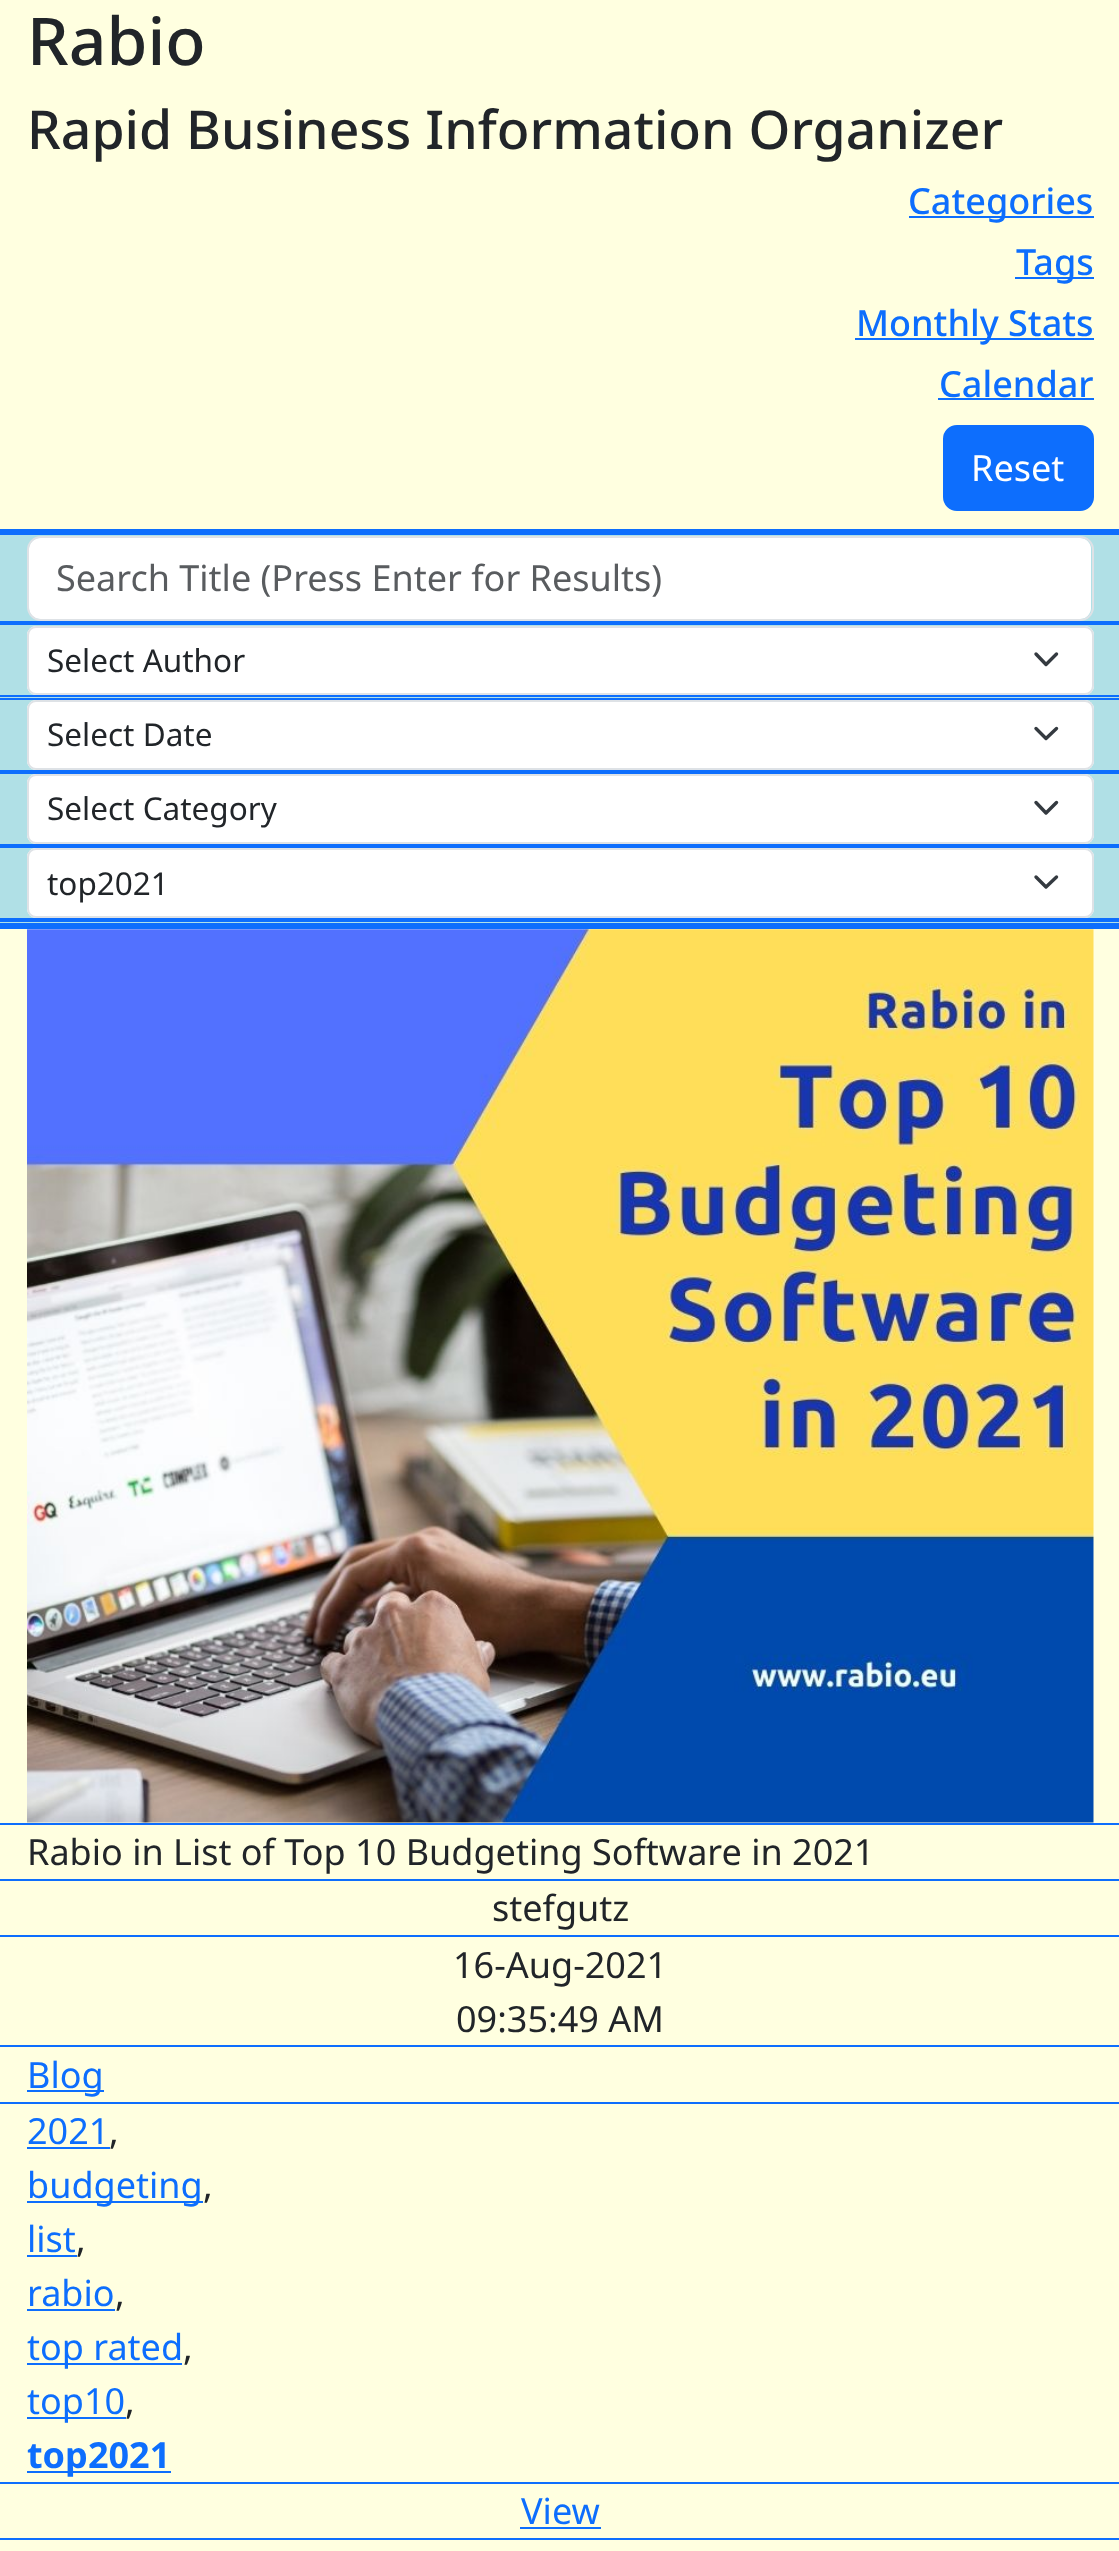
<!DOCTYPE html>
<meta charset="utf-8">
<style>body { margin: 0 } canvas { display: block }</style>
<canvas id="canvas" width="1119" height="2551"></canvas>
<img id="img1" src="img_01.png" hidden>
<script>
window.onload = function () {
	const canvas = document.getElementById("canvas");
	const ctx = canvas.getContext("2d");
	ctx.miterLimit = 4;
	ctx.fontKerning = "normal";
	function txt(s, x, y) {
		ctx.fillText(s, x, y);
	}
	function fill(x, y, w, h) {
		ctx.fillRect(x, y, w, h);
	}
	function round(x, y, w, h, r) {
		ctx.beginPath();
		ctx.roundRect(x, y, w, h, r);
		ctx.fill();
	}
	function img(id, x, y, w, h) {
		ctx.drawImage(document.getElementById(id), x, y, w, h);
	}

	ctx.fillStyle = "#FFFFE0";
	fill(0, 0, 1119, 2551);
	ctx.fillStyle = "#0D6EFD";
	fill(909, 216, 185, 2);
	fill(1015, 277, 79, 2);
	fill(855, 338, 239, 2);
	fill(938, 398, 156, 2);
	ctx.beginPath();
	ctx.roundRect(944, 426, 149, 84, 13);
	ctx.fill();
	ctx.strokeStyle = "#0D6EFD";
	ctx.lineWidth = 2;
	ctx.stroke();
	ctx.fillStyle = "#B0E0E6";
	fill(0, 535, 1119, 388);
	ctx.fillStyle = "#0D6EFD";
	fill(0, 529, 1119, 6);
	fill(0, 621, 1119, 4);
	ctx.fillStyle = "#FFFFFF";
	round(29, 538, 1062, 81, 11);
	ctx.beginPath();
	ctx.roundRect(28, 537, 1065, 83, 13);
	ctx.strokeStyle = "#DEE2E6";
	ctx.stroke();
	ctx.fillStyle = "#0D6EFD";
	fill(0, 695, 1119, 2);
	ctx.fillStyle = "#FFFFFF";
	round(27, 626, 1067, 69, 9);
	ctx.beginPath();
	ctx.moveTo(1036, 654);
	ctx.lineTo(1046, 664.5);
	ctx.lineTo(1056.5, 654);
	ctx.strokeStyle = "#343A40";
	ctx.lineWidth = 3.4;
	ctx.lineCap = "round";
	ctx.lineJoin = "round";
	ctx.stroke();
	ctx.beginPath();
	ctx.roundRect(28, 627, 1065, 67, 8);
	ctx.strokeStyle = "#DEE2E6";
	ctx.lineWidth = 2;
	ctx.lineJoin = "miter";
	ctx.stroke();
	ctx.fillStyle = "#0D6EFD";
	fill(0, 698, 1119, 2);
	fill(0, 770, 1119, 4);
	ctx.fillStyle = "#FFFFFF";
	round(27, 700, 1067, 70, 9);
	ctx.beginPath();
	ctx.moveTo(1036, 728.5);
	ctx.lineTo(1046, 738.5);
	ctx.lineTo(1056.5, 728.5);
	ctx.strokeStyle = "#343A40";
	ctx.lineWidth = 3.4;
	ctx.lineJoin = "round";
	ctx.stroke();
	ctx.beginPath();
	ctx.roundRect(28, 701, 1065, 68, 8);
	ctx.strokeStyle = "#DEE2E6";
	ctx.lineWidth = 2;
	ctx.lineJoin = "miter";
	ctx.stroke();
	ctx.fillStyle = "#0D6EFD";
	fill(0, 844, 1119, 4);
	ctx.fillStyle = "#FFFFFF";
	round(27, 774, 1067, 70, 9);
	ctx.beginPath();
	ctx.moveTo(1036, 802.5);
	ctx.lineTo(1046, 813);
	ctx.lineTo(1056.5, 802.5);
	ctx.strokeStyle = "#343A40";
	ctx.lineWidth = 3.4;
	ctx.lineJoin = "round";
	ctx.stroke();
	ctx.beginPath();
	ctx.roundRect(28, 775, 1065, 68, 8);
	ctx.strokeStyle = "#DEE2E6";
	ctx.lineWidth = 2;
	ctx.lineJoin = "miter";
	ctx.stroke();
	ctx.fillStyle = "#0D6EFD";
	fill(0, 918, 1119, 4);
	ctx.fillStyle = "#FFFFFF";
	round(27, 848, 1067, 70, 9);
	ctx.beginPath();
	ctx.moveTo(1036, 877);
	ctx.lineTo(1046, 887);
	ctx.lineTo(1056.5, 877);
	ctx.strokeStyle = "#343A40";
	ctx.lineWidth = 3.4;
	ctx.lineJoin = "round";
	ctx.stroke();
	ctx.beginPath();
	ctx.roundRect(28, 849, 1065, 68, 8);
	ctx.strokeStyle = "#DEE2E6";
	ctx.lineWidth = 2;
	ctx.lineJoin = "miter";
	ctx.stroke();
	ctx.fillStyle = "#0D6EFD";
	fill(0, 923, 1119, 6);
	fill(0, 1823, 1119, 2);
	img("img1", 27, 929, 1067, 894);
	fill(0, 1879, 1119, 2);
	fill(0, 1935, 1119, 2);
	fill(0, 2045, 1119, 2);
	fill(0, 2102, 1119, 2);
	fill(27, 2090, 77, 2);
	fill(0, 2482, 1119, 2);
	fill(27, 2147, 83, 2);
	fill(27, 2201, 176, 2);
	fill(27, 2255, 50, 2);
	fill(27, 2309, 88, 2);
	fill(27, 2363, 155, 2);
	fill(27, 2417, 99, 2);
	fill(27, 2471, 144, 2);
	fill(0, 2538, 1119, 2);
	fill(520, 2527, 81, 2);
	ctx.font = "500 66px Noto Sans";
	ctx.fillStyle = "#212529";
	txt("Rabio", 27, 65);
	ctx.font = "500 53.5px Noto Sans";
	txt("Rapid Business Information Organizer", 27, 149);
	ctx.font = "500 36px Noto Sans";
	ctx.fillStyle = "#0D6EFD";
	txt("Categories", 908, 214);
	txt("Tags", 1016, 275);
	txt("Monthly Stats", 856, 336);
	txt("Calendar", 939, 397);
	ctx.font = "36px Noto Sans";
	ctx.fillStyle = "#FFFFFF";
	txt("Reset", 971, 481);
	ctx.fillStyle = "#595C5F";
	txt("Search Title (Press Enter for Results)", 56, 591);
	ctx.font = "31.5px Noto Sans";
	ctx.fillStyle = "#212529";
	txt("Select Author", 47, 672);
	txt("Select Date", 47, 746);
	txt("Select Category", 47, 820);
	txt("top2021", 47, 895);
	ctx.font = "36px Noto Sans";
	txt("Rabio in List of Top 10 Budgeting Software in 2021", 27, 1865);
	txt("stefgutz", 492, 1921);
	txt("16-Aug-2021", 453, 1978);
	txt("09:35:49 AM", 456, 2032);
	ctx.fillStyle = "#0D6EFD";
	txt("Blog", 27, 2088);
	txt("2021", 27, 2144);
	ctx.fillStyle = "#212529";
	txt(",", 109, 2144);
	ctx.fillStyle = "#0D6EFD";
	txt("budgeting", 27, 2198);
	ctx.fillStyle = "#212529";
	txt(",", 203, 2198);
	ctx.fillStyle = "#0D6EFD";
	txt("list", 27, 2252);
	ctx.fillStyle = "#212529";
	txt(",", 76, 2252);
	ctx.fillStyle = "#0D6EFD";
	txt("rabio", 27, 2306);
	ctx.fillStyle = "#212529";
	txt(",", 115, 2306);
	ctx.fillStyle = "#0D6EFD";
	txt("top rated", 27, 2360);
	ctx.fillStyle = "#212529";
	txt(",", 183, 2360);
	ctx.fillStyle = "#0D6EFD";
	txt("top10", 27, 2414);
	ctx.fillStyle = "#212529";
	txt(",", 125, 2414);
	ctx.font = "bold 36px Noto Sans";
	ctx.fillStyle = "#0D6EFD";
	txt("top2021", 27, 2468);
	ctx.font = "36px Noto Sans";
	txt("View", 521, 2524);
};
</script>
